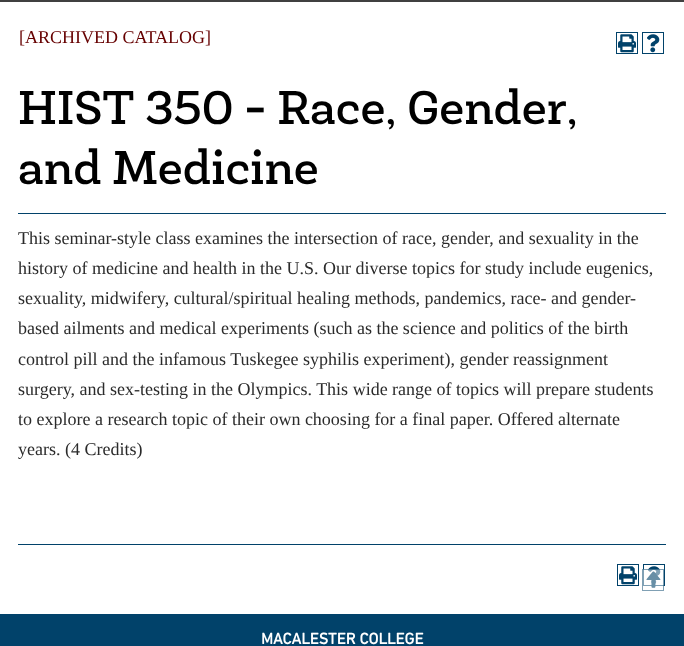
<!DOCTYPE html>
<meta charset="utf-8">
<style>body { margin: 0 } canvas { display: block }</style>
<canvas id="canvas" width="684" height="646"></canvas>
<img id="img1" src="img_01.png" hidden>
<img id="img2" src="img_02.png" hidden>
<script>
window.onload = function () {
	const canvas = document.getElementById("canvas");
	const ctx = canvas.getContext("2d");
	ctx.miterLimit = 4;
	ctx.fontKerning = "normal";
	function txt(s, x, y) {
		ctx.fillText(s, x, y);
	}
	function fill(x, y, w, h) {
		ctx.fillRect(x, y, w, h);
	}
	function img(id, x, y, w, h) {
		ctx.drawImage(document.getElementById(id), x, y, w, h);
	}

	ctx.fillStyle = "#FFFFFF";
	fill(0, 0, 684, 646);
	ctx.fillStyle = "#404040";
	fill(0, 0, 684, 2);
	ctx.strokeStyle = "#01426A";
	ctx.strokeRect(616.5, 32.5, 21, 21);
	img("img1", 618, 34, 18, 19);
	ctx.strokeRect(642.5, 32.5, 21, 21);
	img("img2", 647, 34, 13, 19);
	ctx.fillStyle = "#01426A";
	fill(18, 213, 648, 1);
	fill(18, 544, 648, 1);
	ctx.strokeRect(617.5, 564.5, 21, 21);
	img("img1", 619, 566, 18, 19);
	ctx.strokeRect(643.5, 564.5, 21, 21);
	img("img2", 648, 566, 13, 19);
	ctx.fillStyle = "rgba(255, 255, 255, 0.5)";
	fill(643, 569, 21, 17);
	ctx.strokeStyle = "rgba(1, 66, 106, 0.5)";
	ctx.strokeRect(642.5, 569.5, 21, 21);
	ctx.fillStyle = "#01426A";
	fill(0, 614, 684, 32);
	ctx.font = "18px Liberation Serif";
	ctx.fillStyle = "#660000";
	txt("[ARCHIVED CATALOG]", 19, 43);
	ctx.font = "48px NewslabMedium";
	ctx.fillStyle = "#000000";
	txt("HIST 350 - Race, Gender,", 18, 124);
	txt("and Medicine", 18, 184);
	ctx.font = "18px Liberation Serif";
	ctx.fillStyle = "#2A2A2A";
	txt("This seminar-style class examines the intersection of race, gender, and sexuality in the", 18, 244);
	txt("history of medicine and health in the U.S. Our diverse topics for study include eugenics,", 18, 274);
	txt("sexuality, midwifery, cultural/spiritual healing methods, pandemics, race- and gender-", 18, 304);
	txt("based ailments and medical experiments (such as the science and politics of the birth", 18, 334);
	txt("control pill and the infamous Tuskegee syphilis experiment), gender reassignment", 18, 365);
	txt("surgery, and sex-testing in the Olympics. This wide range of topics will prepare students", 18, 395);
	txt("to explore a research topic of their own choosing for a final paper. Offered alternate", 18, 425);
	txt("years. (4 Credits)", 18, 455);
	ctx.font = "500 18px 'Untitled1'";
	ctx.fillStyle = "#688FA6";
	txt("T", 644, 585);
	ctx.font = "bold 16px DIN Next";
	ctx.fillStyle = "#FFFFFF";
	txt("MACALESTER COLLEGE", 261, 644);
};
</script>
